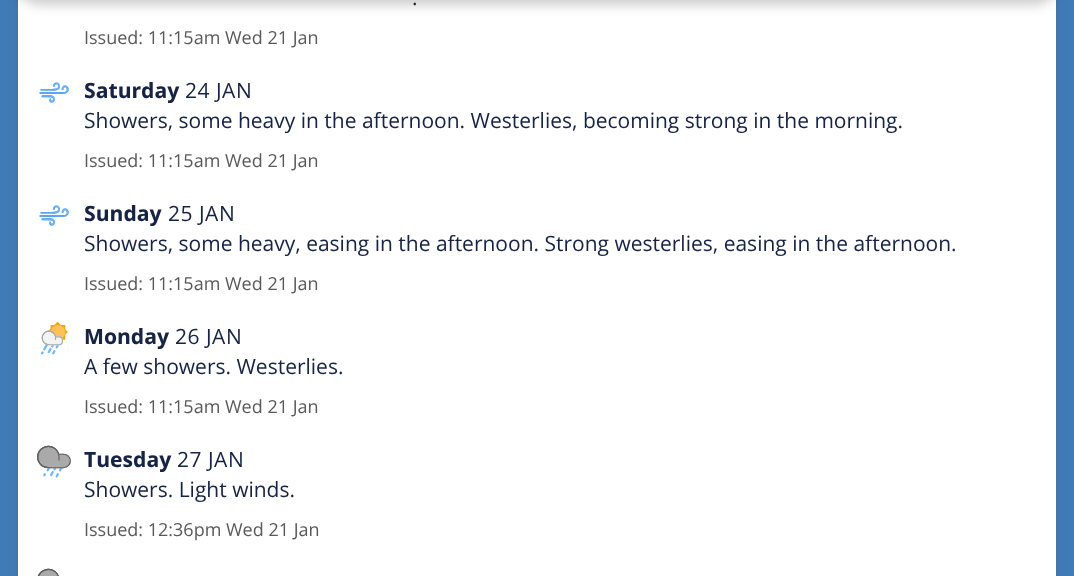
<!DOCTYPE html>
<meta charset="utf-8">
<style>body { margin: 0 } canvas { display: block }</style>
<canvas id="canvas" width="1074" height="576"></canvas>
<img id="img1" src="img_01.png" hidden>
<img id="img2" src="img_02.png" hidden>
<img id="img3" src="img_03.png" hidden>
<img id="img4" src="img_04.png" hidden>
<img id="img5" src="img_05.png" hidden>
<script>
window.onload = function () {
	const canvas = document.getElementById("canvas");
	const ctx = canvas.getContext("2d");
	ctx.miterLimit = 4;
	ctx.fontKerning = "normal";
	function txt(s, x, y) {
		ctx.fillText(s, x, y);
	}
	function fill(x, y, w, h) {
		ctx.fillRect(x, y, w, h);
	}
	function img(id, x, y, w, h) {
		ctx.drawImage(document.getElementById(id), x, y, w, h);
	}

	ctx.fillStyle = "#407BB7";
	fill(0, 0, 1074, 576);
	ctx.fillStyle = "rgba(85, 91, 108, 0.3)";
	ctx.filter = "blur(4.5px)";
	ctx.beginPath();
	ctx.roundRect(18, -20, 1038, 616, 6);
	ctx.fill();
	ctx.filter = "none";
	ctx.fillStyle = "#FFFFFF";
	fill(18, 0, 1038, 576);
	ctx.fillStyle = "rgba(0, 0, 0, 0.2)";
	ctx.filter = "blur(6px)";
	ctx.beginPath();
	ctx.roundRect(12, -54, 1050, 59, 36);
	ctx.fill();
	ctx.filter = "none";
	img("img1", 39, 82, 30, 21);
	img("img2", 39, 205, 30, 21);
	img("img3", 40, 321, 28, 34);
	img("img4", 37, 445, 34, 33);
	img("img5", 37, 568, 22, 8);
	ctx.font = "21px Open Sans";
	ctx.fillStyle = "#172344";
	txt(".", 412, 5);
	ctx.font = "18px Open Sans";
	ctx.fillStyle = "#595959";
	txt("Issued: 11:15am Wed 21 Jan", 84, 44);
	ctx.font = "bold 21px Open Sans";
	ctx.fillStyle = "#172344";
	txt("Saturday", 84, 98);
	ctx.letterSpacing = "0.5px";
	ctx.font = "21px Open Sans";
	txt("24 JAN", 185, 98);
	ctx.letterSpacing = "0px";
	txt("Showers, some heavy in the afternoon. Westerlies, becoming strong in the morning.", 84, 128);
	ctx.font = "18px Open Sans";
	ctx.fillStyle = "#595959";
	txt("Issued: 11:15am Wed 21 Jan", 84, 167);
	ctx.font = "bold 21px Open Sans";
	ctx.fillStyle = "#172344";
	txt("Sunday", 84, 221);
	ctx.letterSpacing = "0.5px";
	ctx.font = "21px Open Sans";
	txt("25 JAN", 168, 221);
	ctx.letterSpacing = "0px";
	txt("Showers, some heavy, easing in the afternoon. Strong westerlies, easing in the afternoon.", 84, 251);
	ctx.font = "18px Open Sans";
	ctx.fillStyle = "#595959";
	txt("Issued: 11:15am Wed 21 Jan", 84, 290);
	ctx.font = "bold 21px Open Sans";
	ctx.fillStyle = "#172344";
	txt("Monday", 84, 344);
	ctx.letterSpacing = "0.5px";
	ctx.font = "21px Open Sans";
	txt("26 JAN", 175, 344);
	ctx.letterSpacing = "0px";
	txt("A few showers. Westerlies.", 84, 374);
	ctx.font = "18px Open Sans";
	ctx.fillStyle = "#595959";
	txt("Issued: 11:15am Wed 21 Jan", 84, 413);
	ctx.font = "bold 21px Open Sans";
	ctx.fillStyle = "#172344";
	txt("Tuesday", 84, 467);
	ctx.letterSpacing = "0.5px";
	ctx.font = "21px Open Sans";
	txt("27 JAN", 177, 467);
	ctx.letterSpacing = "0px";
	txt("Showers. Light winds.", 84, 497);
	ctx.font = "18px Open Sans";
	ctx.fillStyle = "#595959";
	txt("Issued: 12:36pm Wed 21 Jan", 84, 536);
};
</script>
